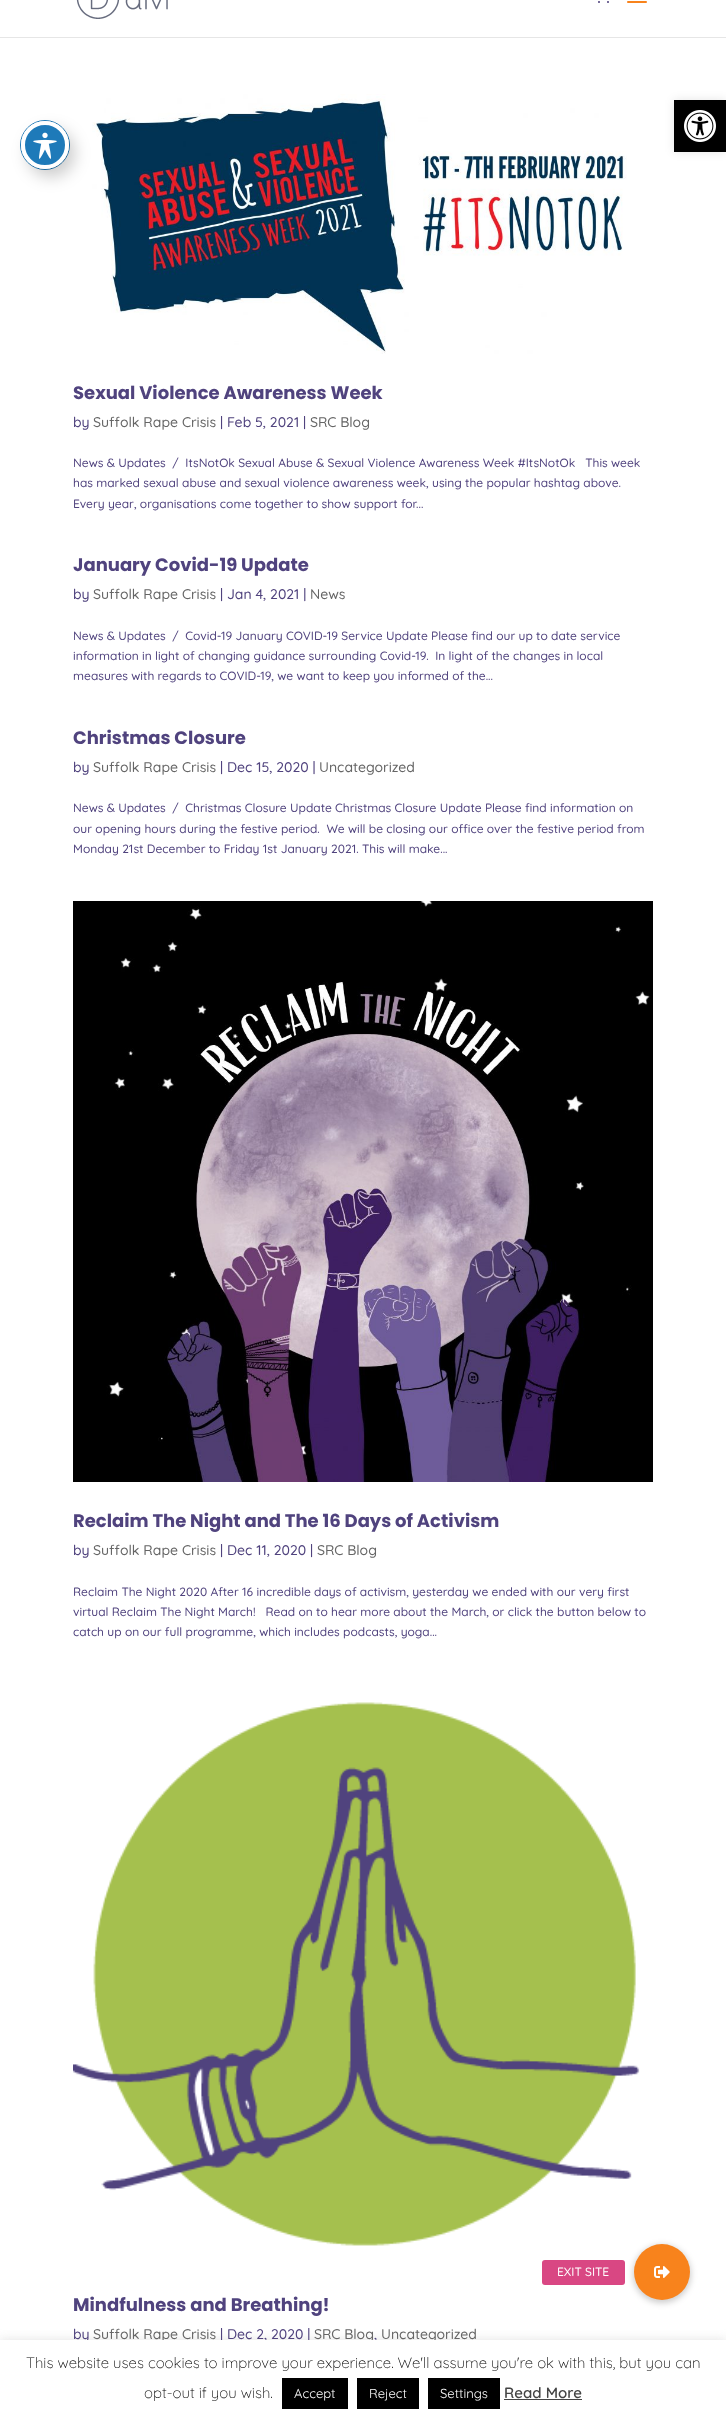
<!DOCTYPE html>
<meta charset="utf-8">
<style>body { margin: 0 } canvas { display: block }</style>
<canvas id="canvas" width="726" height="2421"></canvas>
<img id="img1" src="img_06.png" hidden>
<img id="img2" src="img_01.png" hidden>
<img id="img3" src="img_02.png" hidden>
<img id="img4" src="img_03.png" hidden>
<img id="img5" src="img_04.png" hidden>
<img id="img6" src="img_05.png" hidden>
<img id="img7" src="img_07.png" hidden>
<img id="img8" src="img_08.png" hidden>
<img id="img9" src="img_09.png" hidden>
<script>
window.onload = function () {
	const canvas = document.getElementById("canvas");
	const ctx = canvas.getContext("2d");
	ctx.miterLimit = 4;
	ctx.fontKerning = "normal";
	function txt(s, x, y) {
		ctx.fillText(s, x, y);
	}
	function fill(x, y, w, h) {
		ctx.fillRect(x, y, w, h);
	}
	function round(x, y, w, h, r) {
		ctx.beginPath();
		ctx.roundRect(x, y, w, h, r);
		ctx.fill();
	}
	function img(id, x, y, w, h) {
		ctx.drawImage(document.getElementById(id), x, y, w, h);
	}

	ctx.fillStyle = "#FFFFFF";
	fill(0, 0, 726, 2421);
	ctx.beginPath();
	ctx.arc(45, 145, 24.5, 0, Math.PI * 2);
	ctx.strokeStyle = "#1E7AB9";
	ctx.stroke();
	img("img1", 92, 94, 535, 260);
	ctx.fillStyle = "rgba(0, 0, 0, 0.2)";
	ctx.filter = "blur(8px)";
	ctx.beginPath();
	ctx.roundRect(27, 129, 48, 48, 24);
	ctx.fill();
	ctx.filter = "none";
	ctx.fillStyle = "#1E7AB9";
	ctx.beginPath();
	ctx.arc(45, 145, 22, 0, Math.PI * 2);
	ctx.fill();
	ctx.strokeStyle = "#FFFFFF";
	ctx.lineWidth = 4;
	ctx.stroke();
	img("img2", 33, 132, 24, 27);
	ctx.fillStyle = "rgba(0, 0, 0, 0.1)";
	ctx.filter = "blur(5px)";
	ctx.beginPath();
	ctx.rect(674, 100, 52, 52);
	ctx.fill();
	ctx.filter = "none";
	ctx.fillStyle = "#000000";
	fill(674, 100, 52, 52);
	img("img3", 684, 110, 32, 32);
	ctx.fillStyle = "#E6E6E6";
	fill(0, 37, 726, 1);
	img("img4", 76, 0, 92, 19);
	img("img5", 598, 1, 11, 2);
	img("img6", 627, 1, 20, 2);
	img("img7", 73, 901, 580, 581);
	img("img8", 73, 1702, 567, 544);
	ctx.fillStyle = "rgba(0, 0, 0, 0.2)";
	ctx.filter = "blur(3px)";
	ctx.beginPath();
	ctx.roundRect(633, 2245, 58, 58, 29);
	ctx.fill();
	ctx.filter = "none";
	ctx.fillStyle = "#F8831C";
	ctx.beginPath();
	ctx.arc(662, 2272, 28, 0, Math.PI * 2);
	ctx.fill();
	ctx.fillStyle = "#D94783";
	round(542, 2260, 83, 25, 3);
	img("img9", 654, 2266, 16, 12);
	ctx.fillStyle = "rgba(172, 171, 171, 0.3)";
	ctx.filter = "blur(5px)";
	ctx.beginPath();
	ctx.rect(0, 2339, 726, 81);
	ctx.fill();
	ctx.filter = "none";
	ctx.font = "bold 18px Poppins";
	ctx.fillStyle = "#50437E";
	txt("Sexual Violence Awareness Week", 73, 399);
	ctx.font = "500 14px Quicksand";
	txt("by", 73, 427);
	ctx.fillStyle = "#666666";
	txt("Suffolk Rape Crisis", 93, 427);
	ctx.fillStyle = "#50437E";
	txt("| Feb 5, 2021 |", 220, 427);
	ctx.fillStyle = "#666666";
	txt("SRC Blog", 310, 427);
	ctx.font = "500 12px Quicksand";
	ctx.fillStyle = "#50437E";
	txt("News & Updates  /  ItsNotOk Sexual Abuse & Sexual Violence Awareness Week #ItsNotOk   This week", 73, 467);
	txt("has marked sexual abuse and sexual violence awareness week, using the popular hashtag above.", 73, 487);
	txt("Every year, organisations come together to show support for...", 73, 508);
	ctx.font = "bold 18px Poppins";
	txt("January Covid-19 Update", 73, 571);
	ctx.font = "500 14px Quicksand";
	txt("by", 73, 599);
	ctx.fillStyle = "#666666";
	txt("Suffolk Rape Crisis", 93, 599);
	ctx.fillStyle = "#50437E";
	txt("| Jan 4, 2021 |", 220, 599);
	ctx.fillStyle = "#666666";
	txt("News", 310, 599);
	ctx.font = "500 12px Quicksand";
	ctx.fillStyle = "#50437E";
	txt("News & Updates  /  Covid-19 January COVID-19 Service Update Please find our up to date service", 73, 640);
	txt("information in light of changing guidance surrounding Covid-19.  In light of the changes in local", 73, 660);
	txt("measures with regards to COVID-19, we want to keep you informed of the...", 73, 680);
	ctx.font = "bold 18px Poppins";
	txt("Christmas Closure", 73, 744);
	ctx.font = "500 14px Quicksand";
	txt("by", 73, 772);
	ctx.fillStyle = "#666666";
	txt("Suffolk Rape Crisis", 93, 772);
	ctx.fillStyle = "#50437E";
	txt("| Dec 15, 2020 |", 220, 772);
	ctx.fillStyle = "#666666";
	txt("Uncategorized", 319, 772);
	ctx.font = "500 12px Quicksand";
	ctx.fillStyle = "#50437E";
	txt("News & Updates  /  Christmas Closure Update Christmas Closure Update Please find information on", 73, 812);
	txt("our opening hours during the festive period.  We will be closing our office over the festive period from", 73, 833);
	txt("Monday 21st December to Friday 1st January 2021. This will make...", 73, 853);
	ctx.font = "bold 18px Poppins";
	txt("Reclaim The Night and The 16 Days of Activism", 73, 1527);
	ctx.font = "500 14px Quicksand";
	txt("by", 73, 1555);
	ctx.fillStyle = "#666666";
	txt("Suffolk Rape Crisis", 93, 1555);
	ctx.fillStyle = "#50437E";
	txt("| Dec 11, 2020 |", 220, 1555);
	ctx.fillStyle = "#666666";
	txt("SRC Blog", 317, 1555);
	ctx.font = "500 12px Quicksand";
	ctx.fillStyle = "#50437E";
	txt("Reclaim The Night 2020 After 16 incredible days of activism, yesterday we ended with our very first", 73, 1596);
	txt("virtual Reclaim The Night March!   Read on to hear more about the March, or click the button below to", 73, 1616);
	txt("catch up on our full programme, which includes podcasts, yoga...", 73, 1636);
	ctx.font = "bold 18px Poppins";
	txt("Mindfulness and Breathing!", 73, 2311);
	ctx.font = "500 14px Quicksand";
	txt("by", 73, 2339);
	ctx.fillStyle = "#666666";
	txt("Suffolk Rape Crisis", 93, 2339);
	ctx.fillStyle = "#50437E";
	txt("| Dec 2, 2020 |", 220, 2339);
	ctx.fillStyle = "#666666";
	txt("SRC Blog", 314, 2339);
	ctx.fillStyle = "#50437E";
	txt(",", 374, 2339);
	ctx.fillStyle = "#666666";
	txt("Uncategorized", 381, 2339);
	ctx.font = "500 12px Quicksand";
	ctx.fillStyle = "#FFFFFF";
	txt("EXIT SITE", 557, 2276);
	fill(0, 2340, 726, 81);
	ctx.font = "300 15px Quicksand";
	ctx.fillStyle = "#000000";
	txt("This website uses cookies to improve your experience. We'll assume you're ok with this, but you can", 26, 2368);
	txt("opt-out if you wish.", 144, 2398);
	fill(282, 2378, 66, 31);
	ctx.font = "13px Quicksand";
	ctx.fillStyle = "#FFFFFF";
	txt("Accept", 294, 2398);
	ctx.fillStyle = "#000000";
	fill(357, 2378, 62, 31);
	ctx.fillStyle = "#FFFFFF";
	txt("Reject", 369, 2398);
	ctx.fillStyle = "#000000";
	fill(428, 2378, 72, 31);
	ctx.fillStyle = "#FFFFFF";
	txt("Settings", 440, 2398);
	ctx.font = "600 15px Quicksand";
	ctx.fillStyle = "#444444";
	txt("Read More", 504, 2398);
	fill(504, 2399, 78, 1);
};
</script>
